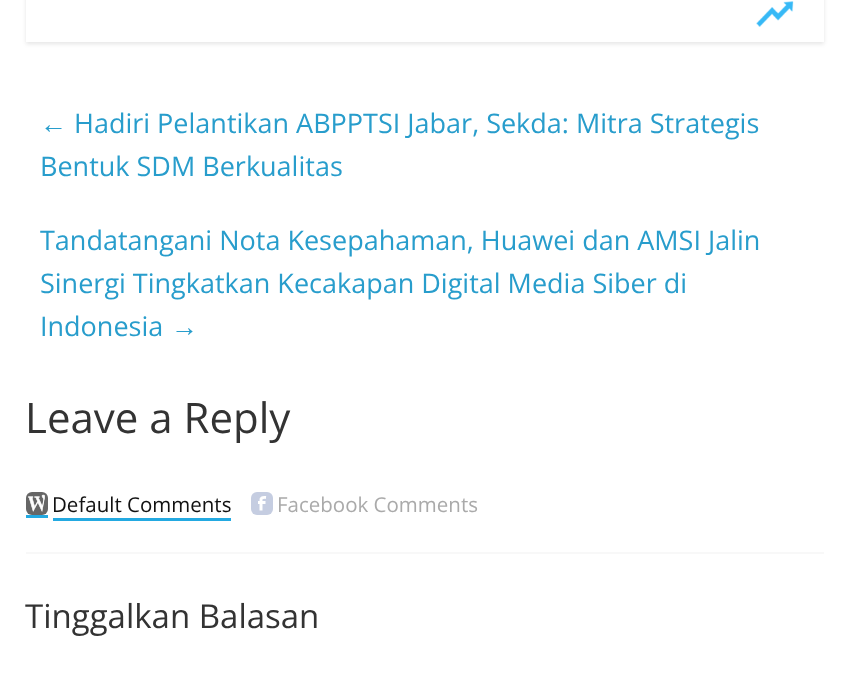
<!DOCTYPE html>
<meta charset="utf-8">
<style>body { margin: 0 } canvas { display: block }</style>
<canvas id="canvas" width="848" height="688"></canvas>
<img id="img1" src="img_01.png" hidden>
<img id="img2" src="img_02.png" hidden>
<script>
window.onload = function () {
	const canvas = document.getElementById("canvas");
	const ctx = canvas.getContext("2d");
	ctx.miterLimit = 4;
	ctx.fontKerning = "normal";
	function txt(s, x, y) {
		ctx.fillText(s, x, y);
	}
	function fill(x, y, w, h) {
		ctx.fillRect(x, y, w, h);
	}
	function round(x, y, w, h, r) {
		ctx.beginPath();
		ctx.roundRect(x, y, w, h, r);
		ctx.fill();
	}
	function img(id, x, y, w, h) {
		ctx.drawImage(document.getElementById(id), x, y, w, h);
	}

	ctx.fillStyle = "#FFFFFF";
	fill(0, 0, 848, 688);
	ctx.save();
	ctx.beginPath();
	ctx.moveTo(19, 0);
	ctx.lineTo(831, 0);
	ctx.lineTo(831, 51);
	ctx.lineTo(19, 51);
	ctx.closePath();
	ctx.moveTo(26, -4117);
	ctx.lineTo(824, -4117);
	ctx.lineTo(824, 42);
	ctx.lineTo(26, 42);
	ctx.closePath();
	ctx.clip("evenodd");
	ctx.fillStyle = "rgba(0, 0, 0, 0.1)";
	ctx.filter = "blur(2px)";
	ctx.beginPath();
	ctx.rect(26, -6, 798, 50);
	ctx.fill();
	ctx.filter = "none";
	ctx.restore();
	img("img1", 756, 1, 38, 26);
	ctx.fillStyle = "#23A9E1";
	fill(26, 515, 22, 3);
	fill(53, 518, 178, 3);
	ctx.fillStyle = "#666666";
	round(26, 492, 22, 23, 6);
	img("img2", 28, 494, 17, 18);
	ctx.fillStyle = "#C5CDE1";
	round(251, 492, 22, 23, 6);
	ctx.beginPath();
	ctx.moveTo(261, 510.5);
	ctx.lineTo(261, 501);
	ctx.bezierCurveTo(260.5, 498, 262, 497, 266, 497.5);
	ctx.moveTo(258, 502.5);
	ctx.lineTo(265.5, 502.5);
	ctx.strokeStyle = "#FFFFFF";
	ctx.lineWidth = 3;
	ctx.stroke();
	ctx.fillStyle = "#F8F8F8";
	fill(26, 552, 798, 2);
	ctx.font = "27px Liberation Serif";
	ctx.fillStyle = "#289DCC";
	txt("←", 40, 133);
	ctx.font = "27px Open Sans";
	txt("Hadiri Pelantikan ABPPTSI Jabar, Sekda: Mitra Strategis", 74, 133);
	txt("Bentuk SDM Berkualitas", 40, 176);
	txt("Tandatangani Nota Kesepahaman, Huawei dan AMSI Jalin", 40, 250);
	txt("Sinergi Tingkatkan Kecakapan Digital Media Siber di", 40, 293);
	txt("Indonesia", 40, 336);
	ctx.font = "27px Liberation Serif";
	txt("→", 171, 336);
	ctx.font = "42px Open Sans";
	ctx.fillStyle = "#333333";
	txt("Leave a Reply", 25, 433);
	ctx.font = "20.5px Open Sans";
	ctx.fillStyle = "#111111";
	txt("Default Comments", 52, 512);
	ctx.fillStyle = "#AAAAAA";
	txt("Facebook Comments", 277, 512);
	ctx.font = "33px Open Sans";
	ctx.fillStyle = "#333333";
	txt("Tinggalkan Balasan", 25, 628);
};
</script>
